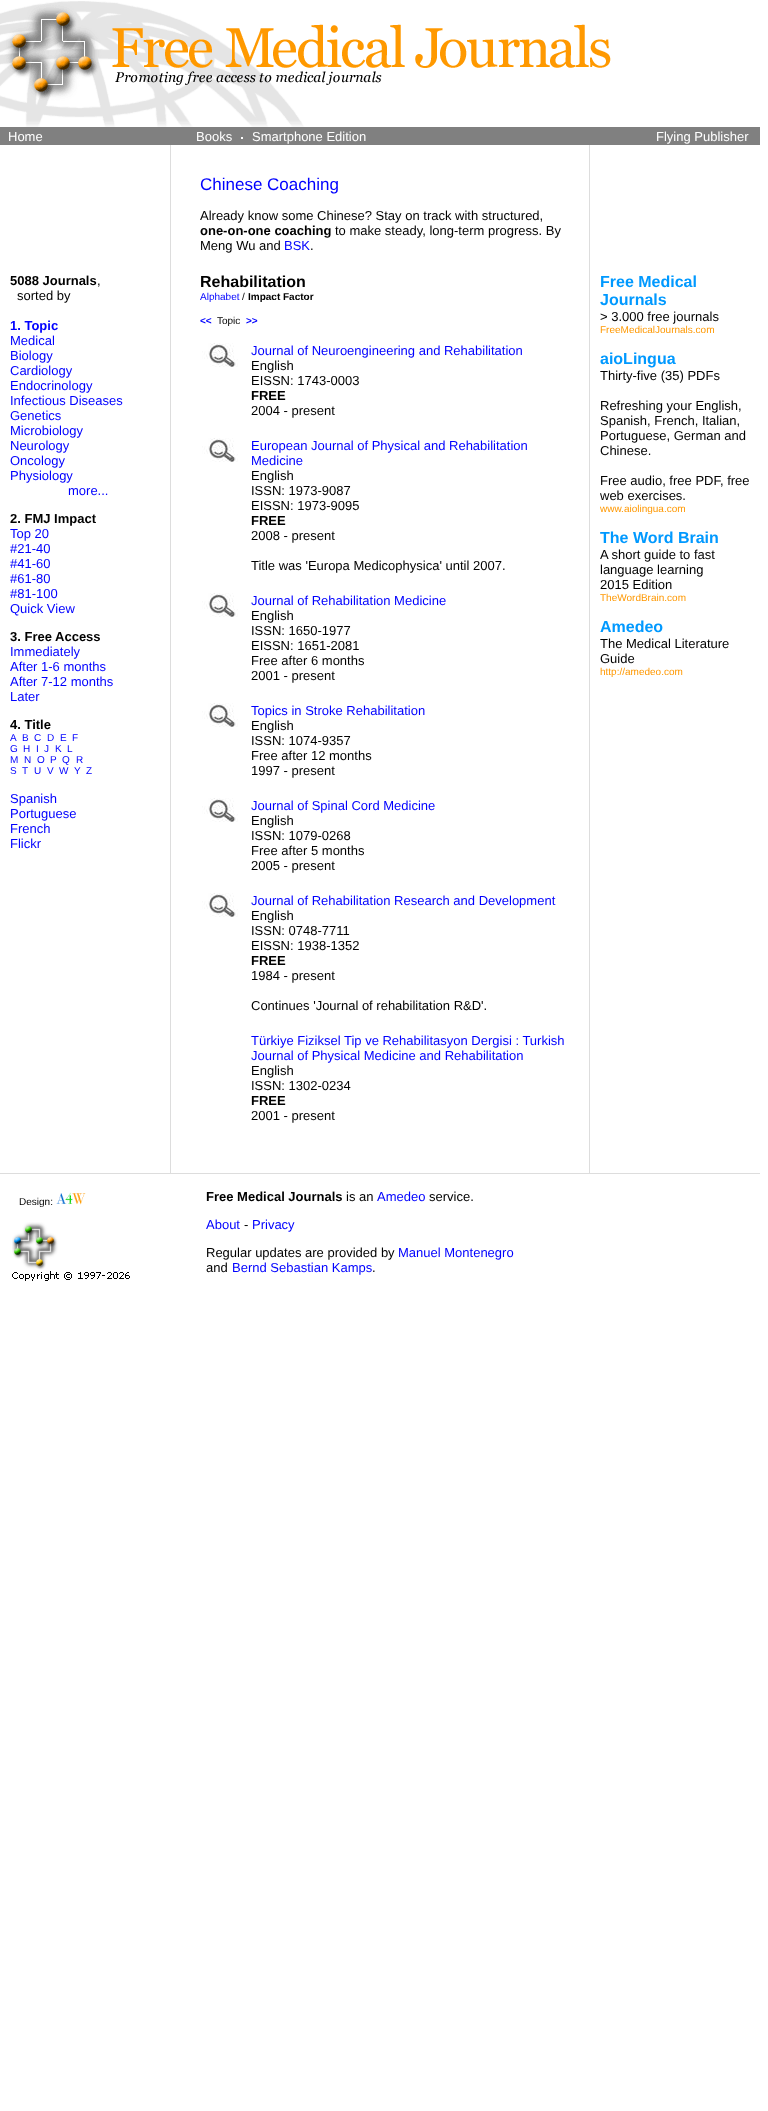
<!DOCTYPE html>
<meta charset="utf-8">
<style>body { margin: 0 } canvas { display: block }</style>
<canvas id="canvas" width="768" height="2111"></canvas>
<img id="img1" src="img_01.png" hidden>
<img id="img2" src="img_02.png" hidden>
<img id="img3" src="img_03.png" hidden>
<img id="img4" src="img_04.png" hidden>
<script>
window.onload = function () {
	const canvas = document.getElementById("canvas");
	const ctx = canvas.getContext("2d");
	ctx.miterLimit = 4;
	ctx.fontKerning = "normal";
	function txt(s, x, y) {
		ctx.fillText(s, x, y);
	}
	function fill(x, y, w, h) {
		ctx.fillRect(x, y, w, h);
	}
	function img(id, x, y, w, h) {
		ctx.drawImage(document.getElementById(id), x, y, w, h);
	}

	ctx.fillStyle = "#FFFFFF";
	fill(0, 0, 768, 2111);
	img("img1", 0, 1, 611, 126);
	ctx.fillStyle = "#808080";
	fill(0, 127, 760, 18);
	ctx.fillStyle = "#FFFFFF";
	fill(241, 137, 2, 2);
	ctx.fillStyle = "#DDDDDD";
	fill(170, 145, 1, 1028);
	fill(589, 145, 1, 1028);
	img("img2", 202, 343, 36, 24);
	img("img2", 202, 438, 36, 24);
	img("img2", 202, 593, 36, 24);
	img("img2", 202, 703, 36, 24);
	img("img2", 202, 798, 36, 24);
	img("img2", 202, 893, 36, 24);
	fill(0, 1173, 760, 1);
	img("img3", 56, 1192, 30, 13);
	img("img4", 12, 1222, 118, 59);
	ctx.font = "13px Liberation Sans";
	ctx.fillStyle = "#FFFFFF";
	txt("Home", 8, 141);
	txt("Books", 196, 141);
	txt("Smartphone Edition", 252, 141);
	txt("Flying Publisher", 656, 141);
	ctx.font = "17px Liberation Sans";
	ctx.fillStyle = "#0000FF";
	txt("Chinese Coaching", 200, 190);
	ctx.font = "13px Liberation Sans";
	ctx.fillStyle = "#000000";
	txt("Already know some Chinese? Stay on track with structured,", 200, 220);
	ctx.font = "bold 13px Liberation Sans";
	txt("one-on-one coaching", 200, 235);
	ctx.font = "13px Liberation Sans";
	txt("to make steady, long-term progress. By", 335, 235);
	txt("Meng Wu and", 200, 250);
	ctx.fillStyle = "#0000FF";
	txt("BSK", 284, 250);
	ctx.fillStyle = "#000000";
	txt(".", 310, 250);
	ctx.font = "bold 13px Liberation Sans";
	txt("5088 Journals", 10, 285);
	ctx.font = "13px Liberation Sans";
	txt(",", 97, 285);
	txt("sorted by", 17, 300);
	ctx.font = "bold 13px Liberation Sans";
	ctx.fillStyle = "#0000FF";
	txt("1. Topic", 10, 330);
	ctx.font = "13px Liberation Sans";
	txt("Medical", 10, 345);
	txt("Biology", 10, 360);
	txt("Cardiology", 10, 375);
	txt("Endocrinology", 10, 390);
	txt("Infectious Diseases", 10, 405);
	txt("Genetics", 10, 420);
	txt("Microbiology", 10, 435);
	txt("Neurology", 10, 450);
	txt("Oncology", 10, 465);
	txt("Physiology", 10, 480);
	txt("more...", 68, 495);
	ctx.font = "bold 13px Liberation Sans";
	ctx.fillStyle = "#000000";
	txt("2. FMJ Impact", 10, 523);
	ctx.font = "13px Liberation Sans";
	ctx.fillStyle = "#0000FF";
	txt("Top 20", 10, 538);
	txt("#21-40", 10, 553);
	txt("#41-60", 10, 568);
	txt("#61-80", 10, 583);
	txt("#81-100", 10, 598);
	txt("Quick View", 10, 613);
	ctx.font = "bold 13px Liberation Sans";
	ctx.fillStyle = "#000000";
	txt("3. Free Access", 10, 641);
	ctx.font = "13px Liberation Sans";
	ctx.fillStyle = "#0000FF";
	txt("Immediately", 10, 656);
	txt("After 1-6 months", 10, 671);
	txt("After 7-12 months", 10, 686);
	txt("Later", 10, 701);
	ctx.font = "bold 13px Liberation Sans";
	ctx.fillStyle = "#000000";
	txt("4. Title", 10, 729);
	ctx.font = "10px Liberation Sans";
	ctx.fillStyle = "#0000FF";
	txt("A", 10, 741);
	txt("B", 22, 741);
	txt("C", 34, 741);
	txt("D", 47, 741);
	txt("E", 60, 741);
	txt("F", 72, 741);
	txt("G", 10, 752);
	txt("H", 23, 752);
	txt("I", 36, 752);
	txt("J", 44, 752);
	txt("K", 55, 752);
	txt("L", 67, 752);
	txt("M", 10, 763);
	txt("N", 24, 763);
	txt("O", 37, 763);
	txt("P", 50, 763);
	txt("Q", 62, 763);
	txt("R", 76, 763);
	txt("S", 10, 774);
	txt("T", 22, 774);
	txt("U", 34, 774);
	txt("V", 47, 774);
	txt("W", 59, 774);
	txt("Y", 74, 774);
	txt("Z", 86, 774);
	ctx.font = "13px Liberation Sans";
	txt("Spanish", 10, 803);
	txt("Portuguese", 10, 818);
	txt("French", 10, 833);
	txt("Flickr", 10, 848);
	ctx.font = "bold 16px Liberation Sans";
	ctx.fillStyle = "#000000";
	txt("Rehabilitation", 200, 287);
	ctx.font = "10px Liberation Sans";
	ctx.fillStyle = "#0000FF";
	txt("Alphabet", 200, 300);
	ctx.fillStyle = "#000000";
	txt("/", 242, 300);
	ctx.font = "bold 10px Liberation Sans";
	txt("Impact Factor", 248, 300);
	ctx.fillStyle = "#0000FF";
	txt("<<", 200, 324);
	ctx.font = "10px Liberation Sans";
	ctx.fillStyle = "#000000";
	txt("Topic", 217, 324);
	ctx.font = "bold 10px Liberation Sans";
	ctx.fillStyle = "#0000FF";
	txt(">>", 246, 324);
	ctx.font = "13px Liberation Sans";
	txt("Journal of Neuroengineering and Rehabilitation", 251, 355);
	ctx.fillStyle = "#000000";
	txt("English", 251, 370);
	txt("EISSN: 1743-0003", 251, 385);
	ctx.font = "bold 13px Liberation Sans";
	txt("FREE", 251, 400);
	ctx.font = "13px Liberation Sans";
	txt("2004 - present", 251, 415);
	ctx.fillStyle = "#0000FF";
	txt("European Journal of Physical and Rehabilitation", 251, 450);
	txt("Medicine", 251, 465);
	ctx.fillStyle = "#000000";
	txt("English", 251, 480);
	txt("ISSN: 1973-9087", 251, 495);
	txt("EISSN: 1973-9095", 251, 510);
	ctx.font = "bold 13px Liberation Sans";
	txt("FREE", 251, 525);
	ctx.font = "13px Liberation Sans";
	txt("2008 - present", 251, 540);
	txt("Title was 'Europa Medicophysica' until 2007.", 251, 570);
	ctx.fillStyle = "#0000FF";
	txt("Journal of Rehabilitation Medicine", 251, 605);
	ctx.fillStyle = "#000000";
	txt("English", 251, 620);
	txt("ISSN: 1650-1977", 251, 635);
	txt("EISSN: 1651-2081", 251, 650);
	txt("Free after 6 months", 251, 665);
	txt("2001 - present", 251, 680);
	ctx.fillStyle = "#0000FF";
	txt("Topics in Stroke Rehabilitation", 251, 715);
	ctx.fillStyle = "#000000";
	txt("English", 251, 730);
	txt("ISSN: 1074-9357", 251, 745);
	txt("Free after 12 months", 251, 760);
	txt("1997 - present", 251, 775);
	ctx.fillStyle = "#0000FF";
	txt("Journal of Spinal Cord Medicine", 251, 810);
	ctx.fillStyle = "#000000";
	txt("English", 251, 825);
	txt("ISSN: 1079-0268", 251, 840);
	txt("Free after 5 months", 251, 855);
	txt("2005 - present", 251, 870);
	ctx.fillStyle = "#0000FF";
	txt("Journal of Rehabilitation Research and Development", 251, 905);
	ctx.fillStyle = "#000000";
	txt("English", 251, 920);
	txt("ISSN: 0748-7711", 251, 935);
	txt("EISSN: 1938-1352", 251, 950);
	ctx.font = "bold 13px Liberation Sans";
	txt("FREE", 251, 965);
	ctx.font = "13px Liberation Sans";
	txt("1984 - present", 251, 980);
	txt("Continues 'Journal of rehabilitation R&D'.", 251, 1010);
	ctx.fillStyle = "#0000FF";
	txt("Türkiye Fiziksel Tip ve Rehabilitasyon Dergisi : Turkish", 251, 1045);
	txt("Journal of Physical Medicine and Rehabilitation", 251, 1060);
	ctx.fillStyle = "#000000";
	txt("English", 251, 1075);
	txt("ISSN: 1302-0234", 251, 1090);
	ctx.font = "bold 13px Liberation Sans";
	txt("FREE", 251, 1105);
	ctx.font = "13px Liberation Sans";
	txt("2001 - present", 251, 1120);
	ctx.font = "bold 16px Liberation Sans";
	ctx.fillStyle = "#0099FF";
	txt("Free Medical", 600, 287);
	txt("Journals", 600, 305);
	ctx.font = "13px Liberation Sans";
	ctx.fillStyle = "#000000";
	txt("> 3.000 free journals", 600, 321);
	ctx.font = "10px Liberation Sans";
	ctx.fillStyle = "#FF9800";
	txt("FreeMedicalJournals.com", 600, 333);
	ctx.font = "bold 16px Liberation Sans";
	ctx.fillStyle = "#0099FF";
	txt("aioLingua", 600, 364);
	ctx.font = "13px Liberation Sans";
	ctx.fillStyle = "#000000";
	txt("Thirty-five (35) PDFs", 600, 380);
	txt("Refreshing your English,", 600, 410);
	txt("Spanish, French, Italian,", 600, 425);
	txt("Portuguese, German and", 600, 440);
	txt("Chinese.", 600, 455);
	txt("Free audio, free PDF, free", 600, 485);
	txt("web exercises.", 600, 500);
	ctx.font = "10px Liberation Sans";
	ctx.fillStyle = "#FF9800";
	txt("www.aiolingua.com", 600, 512);
	ctx.font = "bold 16px Liberation Sans";
	ctx.fillStyle = "#0099FF";
	txt("The Word Brain", 600, 543);
	ctx.font = "13px Liberation Sans";
	ctx.fillStyle = "#000000";
	txt("A short guide to fast", 600, 559);
	txt("language learning", 600, 574);
	txt("2015 Edition", 600, 589);
	ctx.font = "10px Liberation Sans";
	ctx.fillStyle = "#FF9800";
	txt("TheWordBrain.com", 600, 601);
	ctx.font = "bold 16px Liberation Sans";
	ctx.fillStyle = "#0099FF";
	txt("Amedeo", 600, 632);
	ctx.font = "13px Liberation Sans";
	ctx.fillStyle = "#000000";
	txt("The Medical Literature", 600, 648);
	txt("Guide", 600, 663);
	ctx.font = "10px Liberation Sans";
	ctx.fillStyle = "#FF9800";
	txt("http://amedeo.com", 600, 675);
	ctx.fillStyle = "#000000";
	txt("Design:", 19, 1205);
	ctx.font = "bold 13px Liberation Sans";
	txt("Free Medical Journals", 206, 1201);
	ctx.font = "13px Liberation Sans";
	txt("is an", 346, 1201);
	ctx.fillStyle = "#0000FF";
	txt("Amedeo", 377, 1201);
	ctx.fillStyle = "#000000";
	txt("service.", 429, 1201);
	ctx.fillStyle = "#0000FF";
	txt("About", 206, 1229);
	ctx.fillStyle = "#000000";
	txt("-", 244, 1229);
	ctx.fillStyle = "#0000FF";
	txt("Privacy", 252, 1229);
	ctx.fillStyle = "#000000";
	txt("Regular updates are provided by", 206, 1257);
	ctx.fillStyle = "#0000FF";
	txt("Manuel Montenegro", 398, 1257);
	ctx.fillStyle = "#000000";
	txt("and", 206, 1272);
	ctx.fillStyle = "#0000FF";
	txt("Bernd Sebastian Kamps", 232, 1272);
	ctx.fillStyle = "#000000";
	txt(".", 372, 1272);
};
</script>
